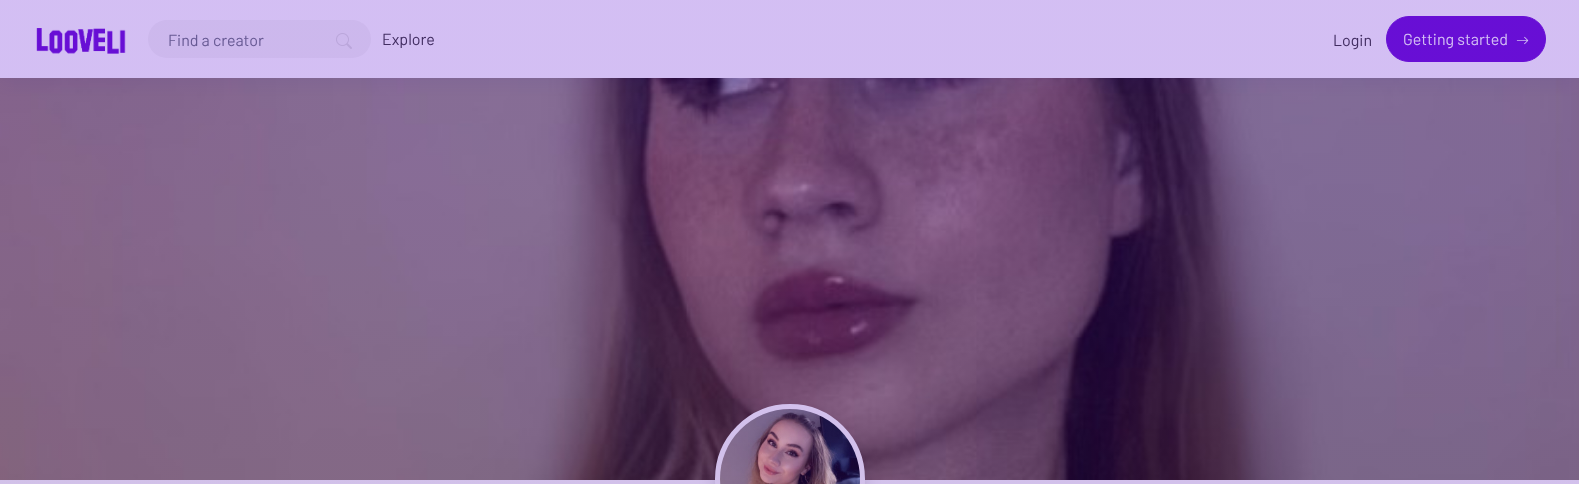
<!DOCTYPE html>
<meta charset="utf-8">
<style>body { margin: 0 } canvas { display: block }</style>
<canvas id="canvas" width="1579" height="484"></canvas>
<img id="img1" src="img_04.png" hidden>
<img id="img2" src="img_01.png" hidden>
<img id="img3" src="img_02.png" hidden>
<img id="img4" src="img_03.png" hidden>
<img id="img5" src="img_05.png" hidden>
<script>
window.onload = function () {
	const canvas = document.getElementById("canvas");
	const ctx = canvas.getContext("2d");
	ctx.miterLimit = 4;
	ctx.fontKerning = "normal";
	function txt(s, x, y) {
		ctx.fillText(s, x, y);
	}
	function fill(x, y, w, h) {
		ctx.fillRect(x, y, w, h);
	}
	function round(x, y, w, h, r) {
		ctx.beginPath();
		ctx.roundRect(x, y, w, h, r);
		ctx.fill();
	}
	function img(id, x, y, w, h) {
		ctx.drawImage(document.getElementById(id), x, y, w, h);
	}
	let gradient;

	ctx.fillStyle = "#FFFFFF";
	fill(0, 0, 1579, 484);
	img("img1", 0, 78, 1579, 402);
	ctx.fillStyle = "rgba(0, 9, 128, 0.05)";
	ctx.filter = "blur(8px)";
	ctx.beginPath();
	ctx.rect(0, 5, 1579, 78);
	ctx.fill();
	ctx.filter = "none";
	ctx.fillStyle = "#FFFFFF";
	fill(0, 0, 1579, 78);
	img("img2", 36, 28, 90, 26);
	ctx.fillStyle = "#F6F6F6";
	round(148, 20, 223, 38, 19);
	img("img3", 336, 33, 16, 16);
	ctx.fillStyle = "#6E11D6";
	ctx.beginPath();
	ctx.roundRect(1386.5, 16.5, 159, 45, 22.5);
	ctx.fill();
	ctx.strokeStyle = "#6E11D6";
	ctx.stroke();
	img("img4", 1516, 36, 13, 9);
	ctx.fillStyle = "rgba(0, 0, 0, 0.15)";
	ctx.filter = "blur(8px)";
	ctx.beginPath();
	ctx.roundRect(715, 412, 150, 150, 75);
	ctx.fill();
	ctx.filter = "none";
	ctx.fillStyle = "#FFFFFF";
	ctx.beginPath();
	ctx.arc(790, 479, 72.5, 0, Math.PI * 2);
	ctx.fill();
	ctx.strokeStyle = "#FFFFFF";
	ctx.lineWidth = 5;
	ctx.stroke();
	img("img5", 720, 409, 140, 75);
	ctx.font = "16px Barlow";
	ctx.fillStyle = "#6C757D";
	txt("Find a creator", 168, 46);
	ctx.fillStyle = "#3A3A3A";
	txt("Explore", 382, 45);
	txt("Login", 1333, 46);
	ctx.fillStyle = "#FFFFFF";
	txt("Getting started", 1403, 45);
	gradient = ctx.createLinearGradient(810, -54, 769, 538);
	gradient.addColorStop(0.35, "rgba(86, 7, 210, 0.26)");
	gradient.addColorStop(1, "rgba(80, 15, 169, 0.26)");
	ctx.fillStyle = gradient;
	fill(0, 0, 1579, 484);
};
</script>
